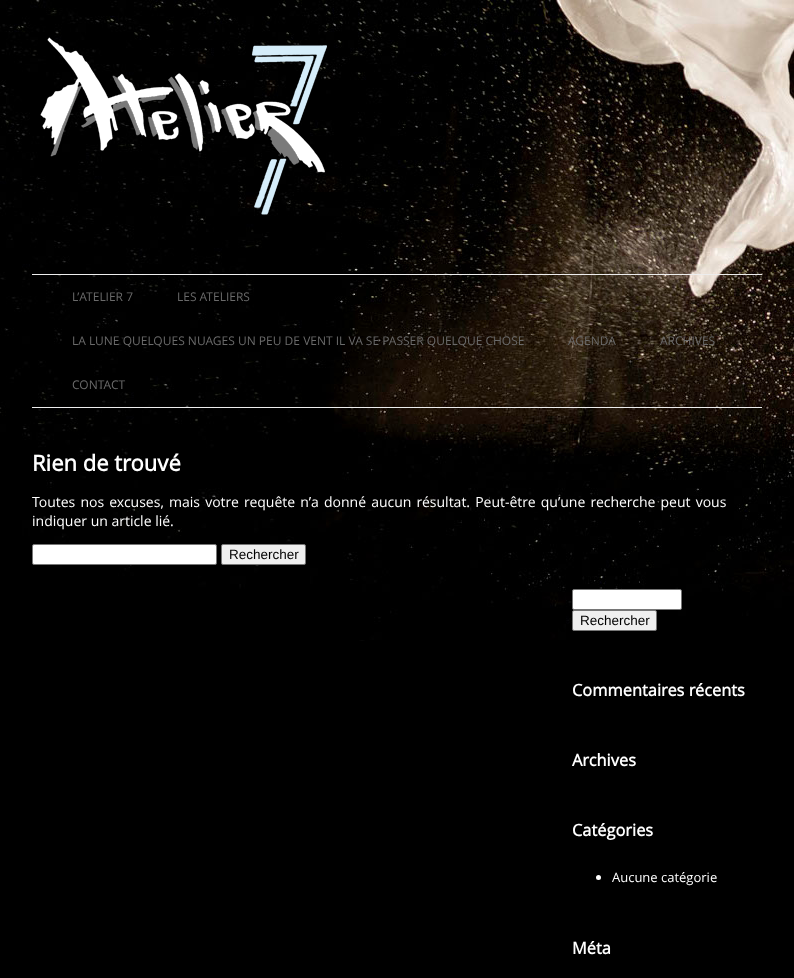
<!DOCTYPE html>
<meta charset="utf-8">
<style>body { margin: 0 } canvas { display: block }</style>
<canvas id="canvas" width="794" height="978"></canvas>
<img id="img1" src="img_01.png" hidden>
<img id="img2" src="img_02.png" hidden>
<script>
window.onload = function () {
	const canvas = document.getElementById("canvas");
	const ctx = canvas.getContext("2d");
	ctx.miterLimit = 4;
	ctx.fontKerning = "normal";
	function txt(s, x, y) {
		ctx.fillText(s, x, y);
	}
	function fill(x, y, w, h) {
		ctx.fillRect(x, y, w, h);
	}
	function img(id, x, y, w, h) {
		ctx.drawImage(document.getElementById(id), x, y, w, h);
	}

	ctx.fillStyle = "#000000";
	fill(0, 0, 794, 978);
	img("img1", 0, 0, 794, 641);
	img("img2", 40, 37, 287, 178);
	ctx.fillStyle = "#EDEDED";
	fill(32, 274, 730, 1);
	fill(32, 407, 730, 1);
	ctx.fillStyle = "#FFFFFF";
	ctx.beginPath();
	ctx.roundRect(32.5, 544.5, 184, 20, 1.5);
	ctx.fill();
	ctx.strokeStyle = "#767676";
	ctx.stroke();
	ctx.fillStyle = "#EFEFEF";
	ctx.beginPath();
	ctx.roundRect(221.5, 544.5, 84, 20, 1.5);
	ctx.fill();
	ctx.stroke();
	ctx.fillStyle = "#FFFFFF";
	ctx.beginPath();
	ctx.roundRect(572.5, 589.5, 109, 20, 1.5);
	ctx.fill();
	ctx.stroke();
	ctx.fillStyle = "#EFEFEF";
	ctx.beginPath();
	ctx.roundRect(572.5, 610.5, 84, 20, 1.5);
	ctx.fill();
	ctx.stroke();
	ctx.fillStyle = "#FFFFFF";
	ctx.beginPath();
	ctx.arc(598.5, 877.5, 2.5, 0, Math.PI * 2);
	ctx.fill();
	ctx.font = "12px Open Sans";
	ctx.fillStyle = "#6A6A6A";
	txt("L’ATELIER 7", 72, 301);
	txt("LES ATELIERS", 177, 301);
	txt("LA LUNE QUELQUES NUAGES UN PEU DE VENT IL VA SE PASSER QUELQUE CHOSE", 72, 345);
	txt("AGENDA", 568, 345);
	txt("ARCHIVES", 660, 345);
	txt("CONTACT", 72, 389);
	ctx.font = "bold 22px Open Sans";
	ctx.fillStyle = "#FFFFFF";
	txt("Rien de trouvé", 32, 471);
	ctx.wordSpacing = "1.5px";
	ctx.font = "14px Open Sans";
	txt("Toutes nos excuses, mais votre requête n’a donné aucun résultat. Peut-être qu’une recherche peut vous", 32, 507);
	ctx.wordSpacing = "0px";
	txt("indiquer un article lié.", 32, 526);
	ctx.font = "13.5px Liberation Sans";
	ctx.fillStyle = "#000000";
	txt("Rechercher", 229, 559);
	txt("Rechercher", 580, 625);
	ctx.font = "bold 16.4px Open Sans";
	ctx.fillStyle = "#FFFFFF";
	txt("Commentaires récents", 572, 696);
	txt("Archives", 572, 766);
	txt("Catégories", 572, 836);
	ctx.font = "13px Open Sans";
	txt("Aucune catégorie", 612, 882);
	ctx.font = "bold 16.4px Open Sans";
	txt("Méta", 572, 954);
};
</script>
